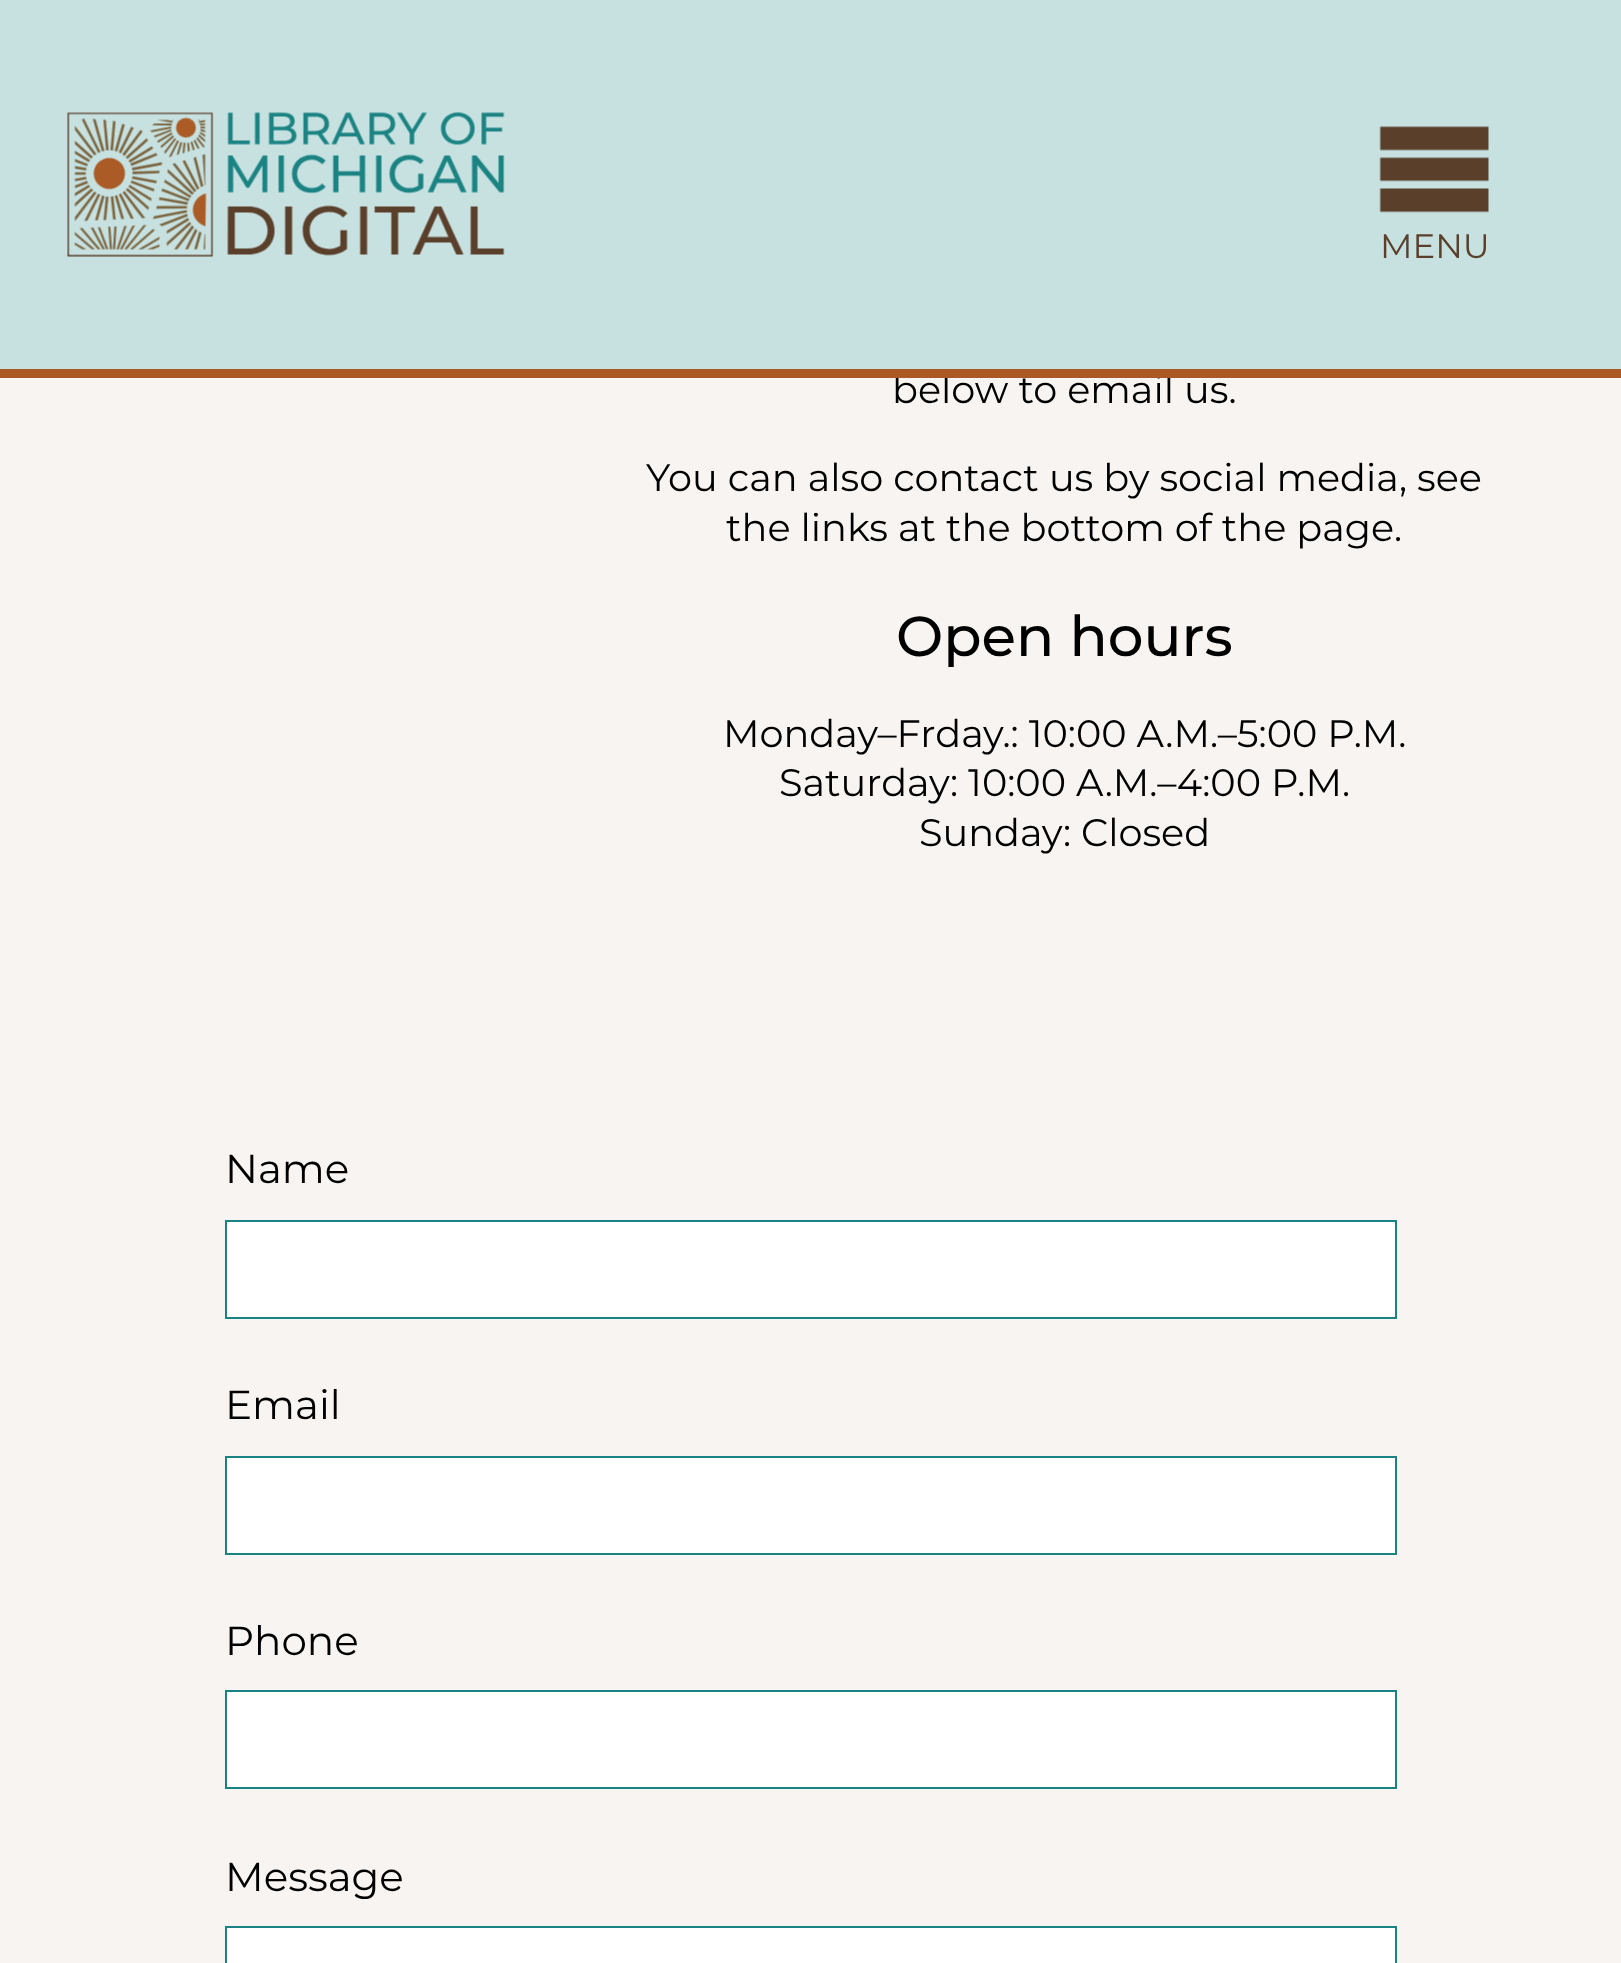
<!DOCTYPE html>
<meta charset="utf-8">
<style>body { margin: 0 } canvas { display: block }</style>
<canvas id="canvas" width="1621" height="1963"></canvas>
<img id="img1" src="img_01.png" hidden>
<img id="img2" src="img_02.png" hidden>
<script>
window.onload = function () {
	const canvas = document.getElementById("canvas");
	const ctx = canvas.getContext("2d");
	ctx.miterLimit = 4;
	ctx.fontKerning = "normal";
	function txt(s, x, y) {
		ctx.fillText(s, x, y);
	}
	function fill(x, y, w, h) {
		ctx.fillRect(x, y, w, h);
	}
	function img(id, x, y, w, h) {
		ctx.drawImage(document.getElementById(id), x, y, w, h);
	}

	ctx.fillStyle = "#F8F4F1";
	fill(0, 0, 1621, 1963);
	ctx.fillStyle = "#C7E1E1";
	fill(0, 0, 1621, 369);
	img("img1", 67, 112, 438, 145);
	img("img2", 1379, 126, 110, 87);
	ctx.fillStyle = "#FFFFFF";
	ctx.beginPath();
	ctx.rect(226, 1221, 1170, 97);
	ctx.fill();
	ctx.strokeStyle = "#198282";
	ctx.lineWidth = 2;
	ctx.stroke();
	ctx.beginPath();
	ctx.rect(226, 1457, 1170, 97);
	ctx.fill();
	ctx.stroke();
	ctx.beginPath();
	ctx.rect(226, 1691, 1170, 97);
	ctx.fill();
	ctx.stroke();
	ctx.beginPath();
	ctx.rect(226, 1927, 1170, 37);
	ctx.fill();
	ctx.stroke();
	ctx.font = "34px Montserrat";
	ctx.fillStyle = "#5A3F2A";
	txt("MENU", 1380, 258);
	ctx.font = "38.25px Montserrat";
	ctx.fillStyle = "#000000";
	txt("below to email us.", 892, 403);
	ctx.fillStyle = "#AA5924";
	fill(0, 369, 1621, 9);
	ctx.fillStyle = "#000000";
	txt("You can also contact us by social media, see", 646, 491);
	txt("the links at the bottom of the page.", 726, 541);
	ctx.font = "500 56.25px Montserrat";
	txt("Open hours", 896, 656);
	ctx.font = "38.25px Montserrat";
	txt("Monday–Frday.: 10:00 A.M.–5:00 P.M.", 723, 747);
	txt("Saturday: 10:00 A.M.–4:00 P.M.", 779, 796);
	txt("Sunday: Closed", 919, 846);
	ctx.font = "40.5px Montserrat";
	txt("Name", 225, 1183);
	txt("Email", 225, 1419);
	txt("Phone", 225, 1655);
	txt("Message", 225, 1891);
};
</script>
